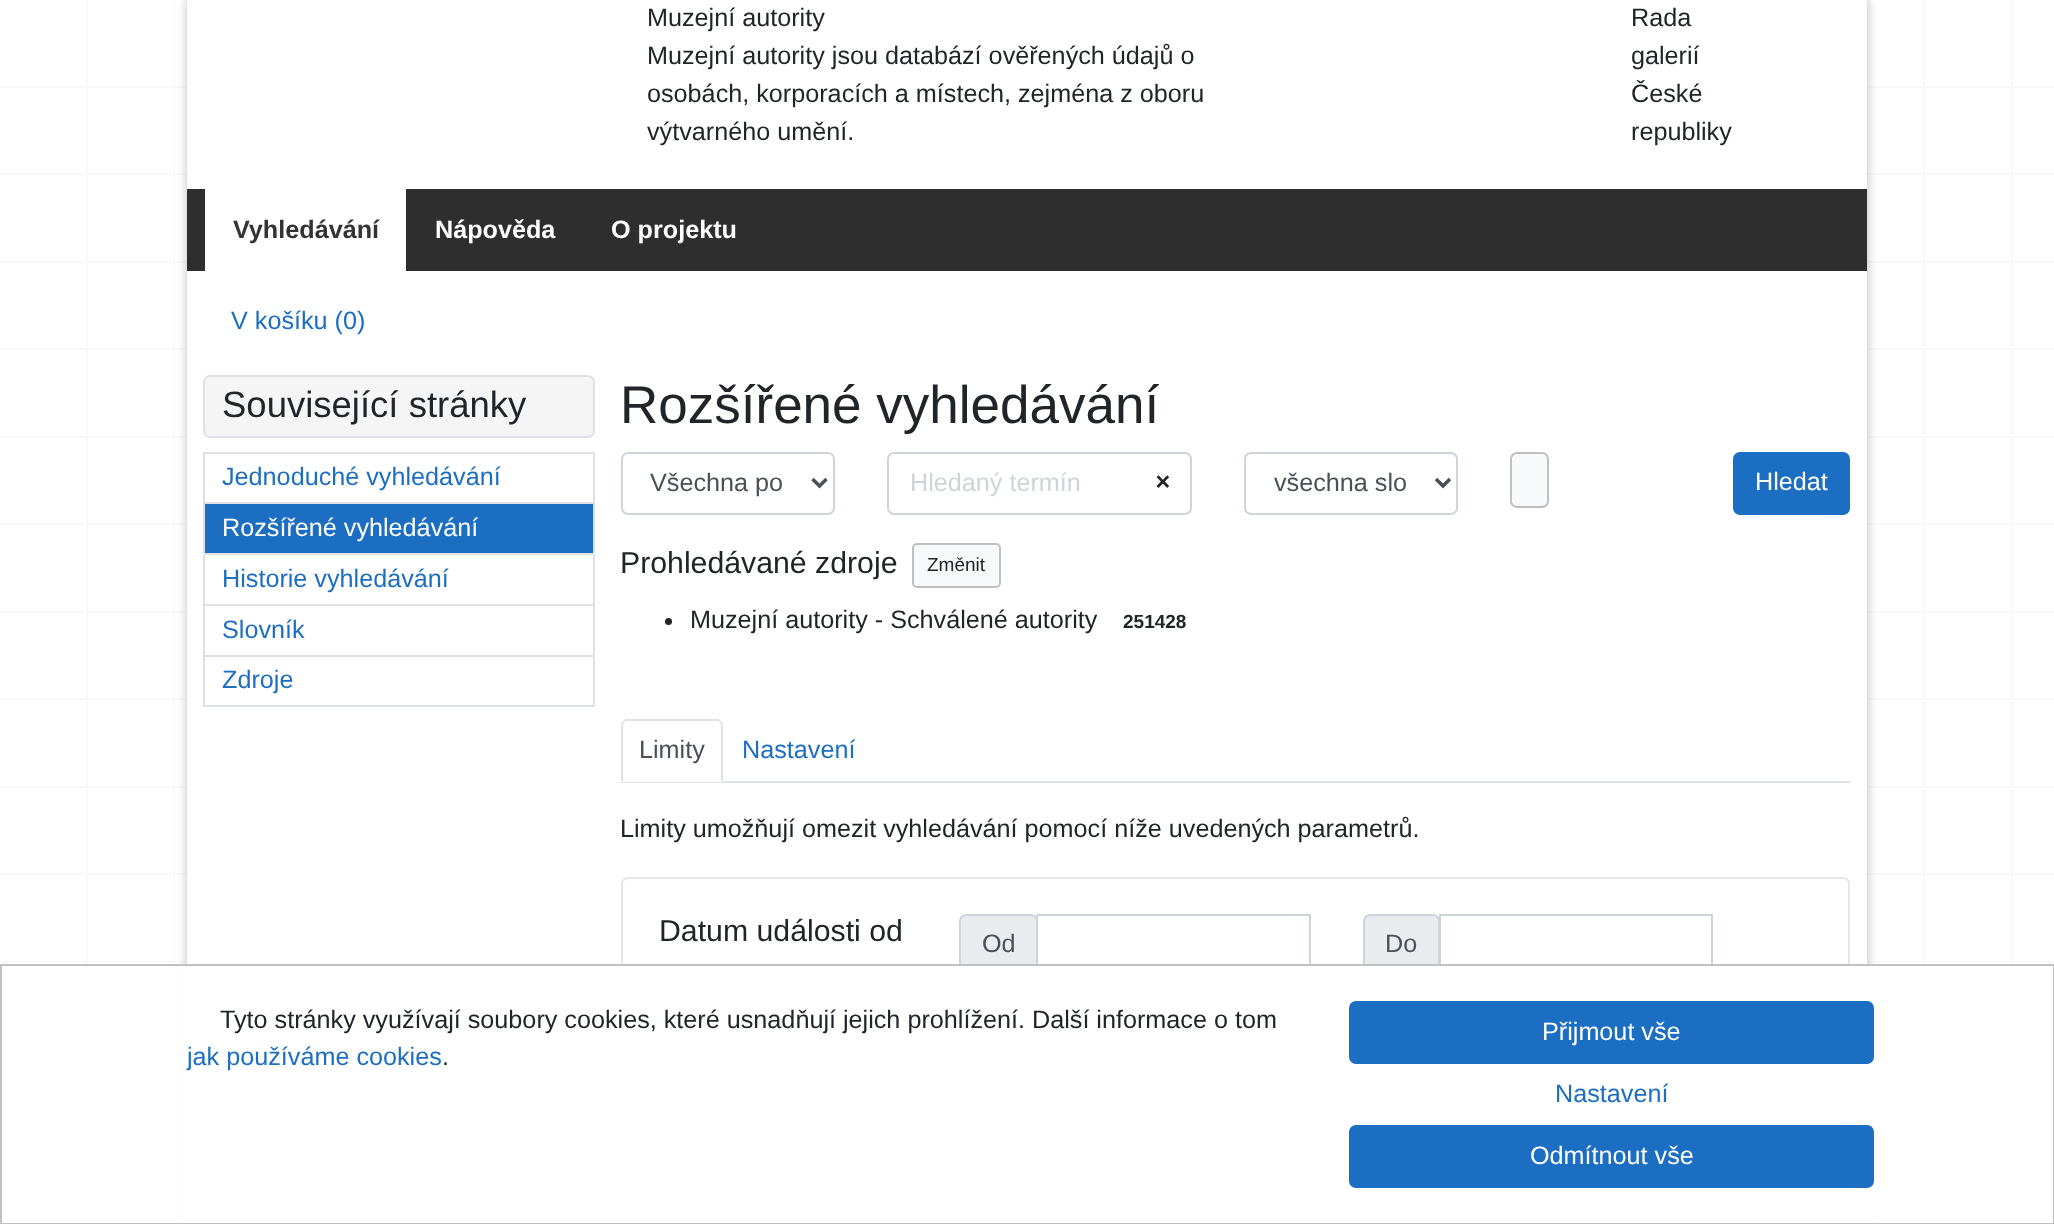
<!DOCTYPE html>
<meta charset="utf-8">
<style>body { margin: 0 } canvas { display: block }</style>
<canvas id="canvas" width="2054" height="1224"></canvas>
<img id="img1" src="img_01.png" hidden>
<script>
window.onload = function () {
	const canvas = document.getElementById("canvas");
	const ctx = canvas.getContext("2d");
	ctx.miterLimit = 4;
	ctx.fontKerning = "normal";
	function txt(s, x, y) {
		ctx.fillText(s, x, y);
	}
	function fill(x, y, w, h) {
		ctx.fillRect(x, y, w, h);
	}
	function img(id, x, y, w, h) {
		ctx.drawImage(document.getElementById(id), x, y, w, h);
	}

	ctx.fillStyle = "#FFFFFF";
	fill(0, 0, 2054, 1224);
	img("img1", 86, 0, 1927, 964);
	ctx.fillStyle = "#F8F9FA";
	fill(0, 86, 2054, 2);
	fill(0, 173, 2054, 2);
	fill(0, 261, 2054, 2);
	fill(0, 348, 2054, 2);
	fill(0, 436, 2054, 2);
	fill(0, 523, 2054, 2);
	fill(0, 611, 2054, 2);
	fill(0, 698, 2054, 2);
	fill(0, 786, 2054, 2);
	fill(0, 873, 2054, 2);
	fill(0, 961, 2054, 2);
	ctx.fillStyle = "rgba(0, 0, 0, 0.2)";
	ctx.filter = "blur(5px)";
	ctx.beginPath();
	ctx.rect(186, -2, 1683, 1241);
	ctx.fill();
	ctx.filter = "none";
	ctx.fillStyle = "#FFFFFF";
	fill(187, 0, 1680, 964);
	ctx.fillStyle = "#2E2E2E";
	fill(187, 189, 1680, 82);
	ctx.fillStyle = "#FFFFFF";
	fill(205, 189, 201, 82);
	ctx.fillStyle = "#F5F5F5";
	ctx.beginPath();
	ctx.roundRect(204, 376, 390, 61, 6);
	ctx.fill();
	ctx.strokeStyle = "#DEE2E6";
	ctx.lineWidth = 2;
	ctx.stroke();
	ctx.fillStyle = "#DEE2E6";
	fill(203, 452, 392, 2);
	fill(593, 452, 2, 50);
	fill(203, 452, 2, 50);
	fill(203, 502, 392, 2);
	fill(593, 502, 2, 51);
	fill(203, 502, 2, 51);
	ctx.fillStyle = "#1B6EC2";
	fill(205, 504, 388, 49);
	ctx.fillStyle = "#DEE2E6";
	fill(203, 553, 392, 2);
	fill(593, 553, 2, 51);
	fill(203, 553, 2, 51);
	fill(203, 604, 392, 2);
	fill(593, 604, 2, 51);
	fill(203, 604, 2, 51);
	ctx.strokeRect(204, 656, 390, 50);
	ctx.beginPath();
	ctx.roundRect(622, 453, 212, 61, 6);
	ctx.strokeStyle = "#CED4DA";
	ctx.stroke();
	ctx.beginPath();
	ctx.moveTo(812.5, 479);
	ctx.lineTo(819.5, 486);
	ctx.lineTo(826.5, 479);
	ctx.strokeStyle = "#495057";
	ctx.lineWidth = 3.5;
	ctx.stroke();
	ctx.beginPath();
	ctx.roundRect(888, 453, 303, 61, 6);
	ctx.strokeStyle = "#CED4DA";
	ctx.lineWidth = 2;
	ctx.stroke();
	ctx.beginPath();
	ctx.roundRect(1245, 453, 212, 61, 6);
	ctx.stroke();
	ctx.beginPath();
	ctx.moveTo(1436, 479);
	ctx.lineTo(1443, 486);
	ctx.lineTo(1450, 479);
	ctx.strokeStyle = "#495057";
	ctx.lineWidth = 3.5;
	ctx.stroke();
	ctx.fillStyle = "#F8F9FA";
	ctx.beginPath();
	ctx.roundRect(1511, 453, 37, 54, 6);
	ctx.fill();
	ctx.strokeStyle = "#C0C0C0";
	ctx.lineWidth = 2;
	ctx.stroke();
	ctx.fillStyle = "#1B6EC2";
	ctx.beginPath();
	ctx.roundRect(1734, 453, 115, 61, 6);
	ctx.fill();
	ctx.strokeStyle = "#1B6EC2";
	ctx.stroke();
	ctx.fillStyle = "#F8F9FA";
	ctx.beginPath();
	ctx.roundRect(913, 544, 87, 43, 4);
	ctx.fill();
	ctx.strokeStyle = "#C0C0C0";
	ctx.stroke();
	ctx.fillStyle = "#212529";
	ctx.beginPath();
	ctx.arc(668.5, 621.5, 3.5, 0, Math.PI * 2);
	ctx.fill();
	ctx.fillStyle = "#DEE2E6";
	fill(621, 781, 1229, 2);
	ctx.fillStyle = "#FFFFFF";
	ctx.beginPath();
	ctx.roundRect(621, 719, 102, 63, [7, 7, 0, 0]);
	ctx.fill();
	ctx.fillStyle = "#DEE2E6";
	ctx.beginPath();
	ctx.moveTo(628, 721);
	ctx.bezierCurveTo(626, 721, 625, 722, 624, 722);
	ctx.lineTo(623, 721);
	ctx.lineTo(626, 719);
	ctx.lineTo(718, 719);
	ctx.lineTo(721, 721);
	ctx.lineTo(720, 722);
	ctx.bezierCurveTo(719, 722, 718, 721, 716, 721);
	ctx.closePath();
	ctx.fill();
	ctx.beginPath();
	ctx.moveTo(723, 782);
	ctx.lineTo(720, 780);
	ctx.lineTo(721, 780);
	ctx.lineTo(721, 726);
	ctx.bezierCurveTo(721, 724, 720, 723, 720, 722);
	ctx.lineTo(721, 721);
	ctx.lineTo(723, 724);
	ctx.closePath();
	ctx.fill();
	ctx.fillStyle = "#FFFFFF";
	ctx.beginPath();
	ctx.moveTo(722, 782);
	ctx.lineTo(622, 782);
	ctx.lineTo(624, 780);
	ctx.lineTo(720, 780);
	ctx.closePath();
	ctx.fill();
	ctx.fillStyle = "#DEE2E6";
	ctx.beginPath();
	ctx.moveTo(621, 724);
	ctx.lineTo(623, 721);
	ctx.lineTo(624, 722);
	ctx.bezierCurveTo(624, 723, 623, 724, 623, 726);
	ctx.lineTo(623, 780);
	ctx.lineTo(624, 780);
	ctx.lineTo(621, 782);
	ctx.closePath();
	ctx.fill();
	ctx.beginPath();
	ctx.roundRect(622, 878, 1227, 136, 6);
	ctx.strokeStyle = "#E6E6E6";
	ctx.stroke();
	ctx.fillStyle = "#E9ECEF";
	ctx.beginPath();
	ctx.roundRect(960, 915, 77, 61, 6);
	ctx.fill();
	ctx.strokeStyle = "#CED4DA";
	ctx.stroke();
	ctx.strokeRect(1037, 915, 273, 61);
	ctx.beginPath();
	ctx.roundRect(1364, 915, 75, 61, 6);
	ctx.fill();
	ctx.stroke();
	ctx.strokeRect(1440, 915, 272, 61);
	ctx.fillStyle = "#FFFFFF";
	fill(178, 966, 1699, 257);
	ctx.strokeStyle = "#C0C0C0";
	ctx.strokeRect(1, 965, 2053, 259);
	ctx.fillStyle = "#1B6EC2";
	ctx.beginPath();
	ctx.roundRect(1350, 1002, 523, 61, 6);
	ctx.fill();
	ctx.strokeStyle = "#1B6EC2";
	ctx.stroke();
	ctx.beginPath();
	ctx.roundRect(1350, 1126, 523, 61, 6);
	ctx.fill();
	ctx.stroke();
	ctx.font = "25.2px Liberation Sans";
	ctx.fillStyle = "#212529";
	txt("Muzejní autority", 647, 26);
	txt("Muzejní autority jsou databází ověřených údajů o", 647, 64);
	txt("osobách, korporacích a místech, zejména z oboru", 647, 102);
	txt("výtvarného umění.", 647, 140);
	txt("Rada", 1631, 26);
	txt("galerií", 1631, 64);
	txt("České", 1631, 102);
	txt("republiky", 1631, 140);
	ctx.font = "bold 25.2px Liberation Sans";
	ctx.fillStyle = "#333333";
	txt("Vyhledávání", 233, 238);
	ctx.fillStyle = "#FFFFFF";
	txt("Nápověda", 435, 238);
	txt("O projektu", 611, 238);
	ctx.font = "25.2px Liberation Sans";
	ctx.fillStyle = "#1B6EC2";
	txt("V košíku (0)", 231, 329);
	ctx.font = "36.5px Liberation Sans";
	ctx.fillStyle = "#212529";
	txt("Související stránky", 222, 417);
	ctx.font = "25.2px Liberation Sans";
	ctx.fillStyle = "#1B6EC2";
	txt("Jednoduché vyhledávání", 222, 485);
	ctx.fillStyle = "#FFFFFF";
	txt("Rozšířené vyhledávání", 222, 536);
	ctx.fillStyle = "#1B6EC2";
	txt("Historie vyhledávání", 222, 587);
	txt("Slovník", 222, 638);
	txt("Zdroje", 222, 688);
	ctx.font = "53px Liberation Sans";
	ctx.fillStyle = "#212529";
	txt("Rozšířené vyhledávání", 620, 423);
	ctx.font = "25.2px Liberation Sans";
	ctx.fillStyle = "#495057";
	txt("Všechna po", 650, 491);
	ctx.fillStyle = "#CED4DA";
	txt("Hledaný termín", 910, 491);
	ctx.font = "italic bold 25.2px Liberation Sans";
	ctx.fillStyle = "#212529";
	txt("×", 1155, 490);
	ctx.font = "25.2px Liberation Sans";
	ctx.fillStyle = "#495057";
	txt("všechna slo", 1274, 491);
	ctx.fillStyle = "#FFFFFF";
	txt("Hledat", 1755, 490);
	ctx.font = "30.25px Liberation Sans";
	ctx.fillStyle = "#212529";
	txt("Prohledávané zdroje", 620, 573);
	ctx.font = "19px Liberation Sans";
	txt("Změnit", 927, 571);
	ctx.font = "25.2px Liberation Sans";
	txt("Muzejní autority - Schválené autority", 690, 628);
	ctx.font = "bold 19px Liberation Sans";
	txt("251428", 1123, 628);
	ctx.font = "25.2px Liberation Sans";
	ctx.fillStyle = "#495057";
	txt("Limity", 639, 758);
	ctx.fillStyle = "#1B6EC2";
	txt("Nastavení", 742, 758);
	ctx.fillStyle = "#212529";
	txt("Limity umožňují omezit vyhledávání pomocí níže uvedených parametrů.", 620, 837);
	ctx.font = "30.25px Liberation Sans";
	txt("Datum události od", 659, 941);
	ctx.font = "25.2px Liberation Sans";
	ctx.fillStyle = "#495057";
	txt("Od", 982, 952);
	txt("Do", 1385, 952);
	ctx.fillStyle = "#212529";
	txt("Tyto stránky využívají soubory cookies, které usnadňují jejich prohlížení. Další informace o tom", 220, 1028);
	ctx.fillStyle = "#1B6EC2";
	txt("jak používáme cookies", 187, 1065);
	ctx.fillStyle = "#212529";
	txt(".", 442, 1065);
	ctx.fillStyle = "#FFFFFF";
	txt("Přijmout vše", 1542, 1040);
	ctx.fillStyle = "#1B6EC2";
	txt("Nastavení", 1555, 1102);
	ctx.fillStyle = "#FFFFFF";
	txt("Odmítnout vše", 1530, 1164);
};
</script>
